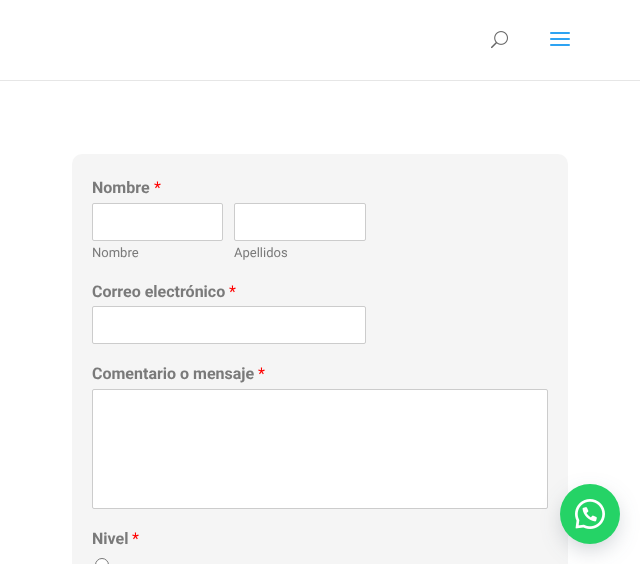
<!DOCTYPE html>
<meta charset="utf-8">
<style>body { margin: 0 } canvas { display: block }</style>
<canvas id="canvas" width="640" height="564"></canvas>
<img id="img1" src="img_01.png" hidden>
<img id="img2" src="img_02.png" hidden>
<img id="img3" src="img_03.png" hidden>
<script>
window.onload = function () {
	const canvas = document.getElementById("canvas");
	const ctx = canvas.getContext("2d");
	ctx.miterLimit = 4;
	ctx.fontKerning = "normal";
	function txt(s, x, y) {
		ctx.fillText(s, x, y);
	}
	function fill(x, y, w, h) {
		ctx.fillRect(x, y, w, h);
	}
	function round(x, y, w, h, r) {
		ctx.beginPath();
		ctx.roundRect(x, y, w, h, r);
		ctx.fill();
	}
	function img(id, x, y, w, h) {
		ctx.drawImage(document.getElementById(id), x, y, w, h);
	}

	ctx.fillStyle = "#FFFFFF";
	fill(0, 0, 640, 564);
	ctx.fillStyle = "#E6E6E6";
	fill(0, 80, 640, 1);
	img("img1", 491, 31, 17, 18);
	img("img2", 550, 32, 20, 14);
	ctx.fillStyle = "#F5F5F5";
	round(72, 154, 496, 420, 10);
	ctx.fillStyle = "#FFFFFF";
	ctx.beginPath();
	ctx.roundRect(92.5, 203.5, 130, 37, 1.5);
	ctx.fill();
	ctx.strokeStyle = "#CCCCCC";
	ctx.stroke();
	ctx.beginPath();
	ctx.roundRect(234.5, 203.5, 131, 37, 1.5);
	ctx.fill();
	ctx.stroke();
	ctx.beginPath();
	ctx.roundRect(92.5, 306.5, 273, 37, 1.5);
	ctx.fill();
	ctx.stroke();
	ctx.beginPath();
	ctx.roundRect(92.5, 389.5, 455, 119, 1.5);
	ctx.fill();
	ctx.stroke();
	ctx.beginPath();
	ctx.arc(102, 565, 6.5, 0, Math.PI * 2);
	ctx.fill();
	ctx.strokeStyle = "#767676";
	ctx.stroke();
	ctx.fillStyle = "rgba(45, 62, 79, 0.3)";
	ctx.filter = "blur(12.5px)";
	ctx.beginPath();
	ctx.roundRect(565, 497, 50, 50, 25);
	ctx.fill();
	ctx.filter = "none";
	ctx.fillStyle = "#25D366";
	ctx.beginPath();
	ctx.arc(590, 514, 30, 0, Math.PI * 2);
	ctx.fill();
	img("img3", 575, 499, 30, 30);
	ctx.font = "bold 16px Roboto";
	ctx.fillStyle = "#7A7A7A";
	txt("Nombre", 92, 193);
	ctx.font = "16px Roboto";
	ctx.fillStyle = "#FF0000";
	txt("*", 154, 193);
	ctx.font = "13px Roboto";
	ctx.fillStyle = "#7A7A7A";
	txt("Nombre", 92, 257);
	txt("Apellidos", 234, 257);
	ctx.font = "bold 16px Roboto";
	txt("Correo electrónico", 92, 297);
	ctx.font = "16px Roboto";
	ctx.fillStyle = "#FF0000";
	txt("*", 229, 297);
	ctx.font = "bold 16px Roboto";
	ctx.fillStyle = "#7A7A7A";
	txt("Comentario o mensaje", 92, 379);
	ctx.font = "16px Roboto";
	ctx.fillStyle = "#FF0000";
	txt("*", 258, 379);
	ctx.font = "bold 16px Roboto";
	ctx.fillStyle = "#7A7A7A";
	txt("Nivel", 92, 544);
	ctx.font = "16px Roboto";
	ctx.fillStyle = "#FF0000";
	txt("*", 132, 544);
};
</script>
